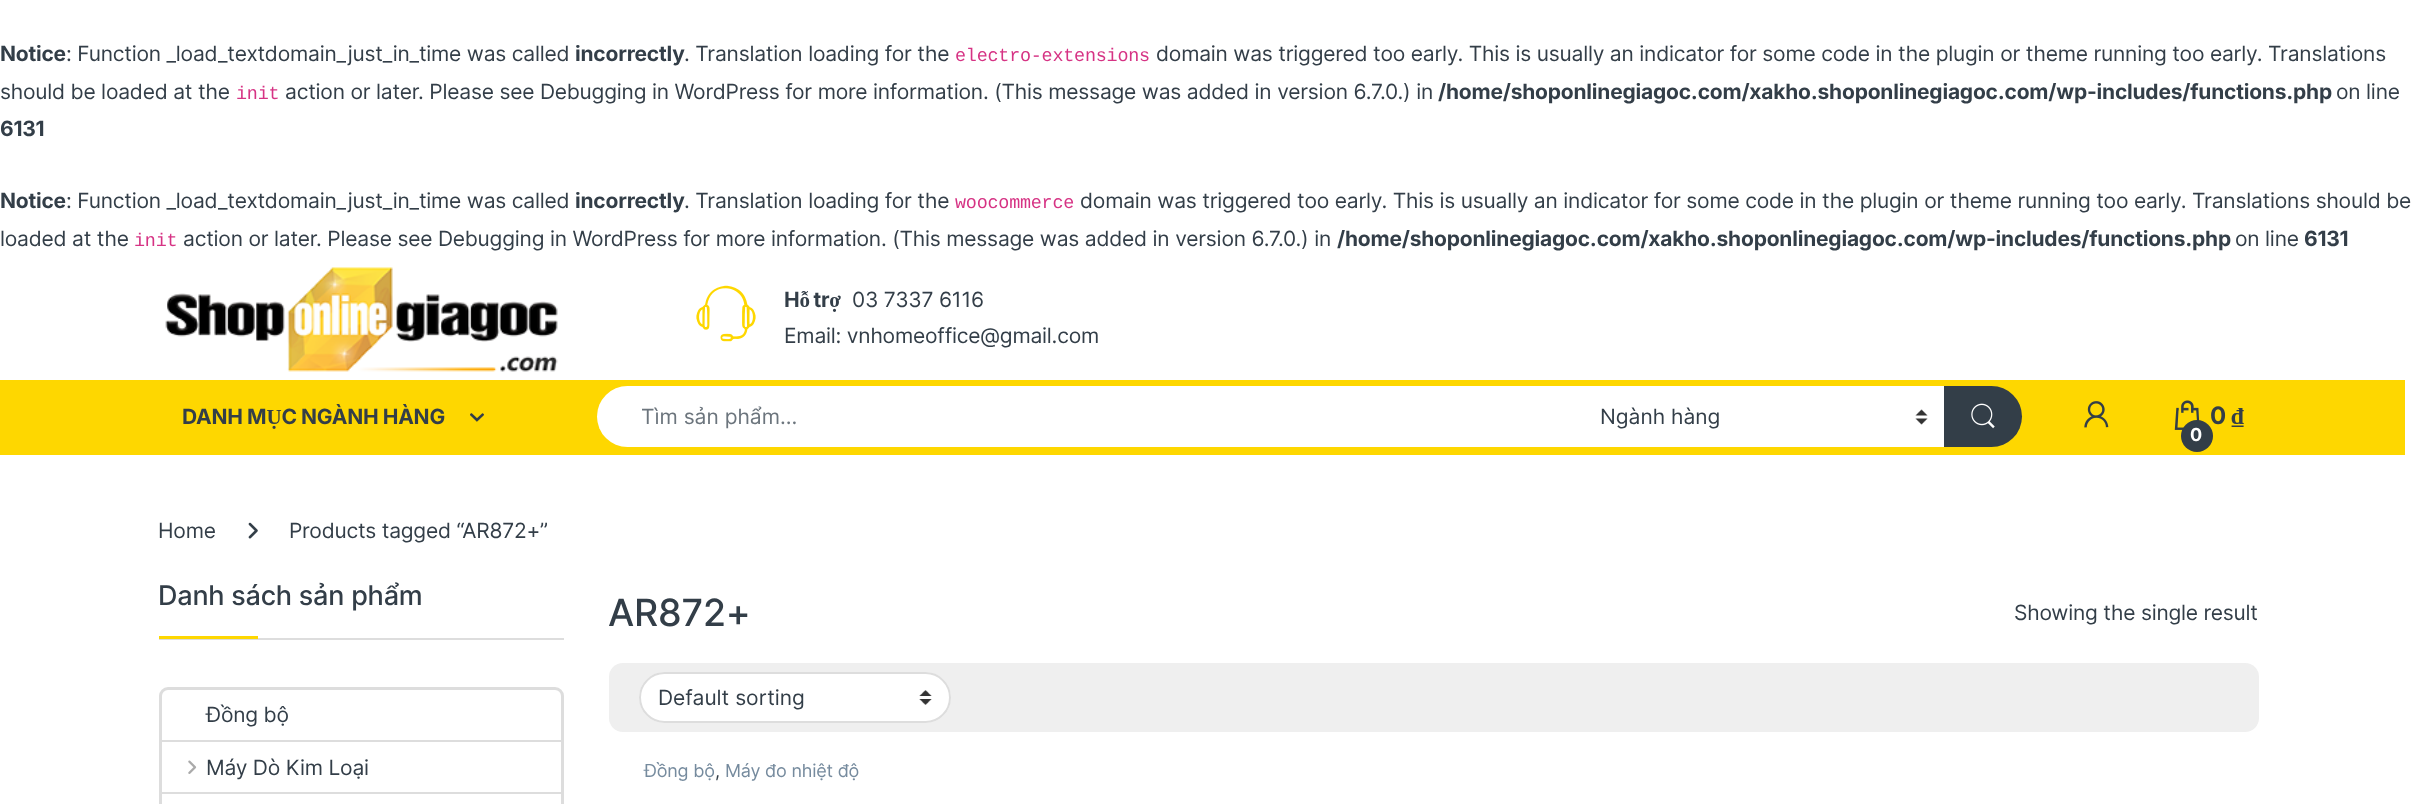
<!DOCTYPE html>
<meta charset="utf-8">
<style>body { margin: 0 } canvas { display: block }</style>
<canvas id="canvas" width="2416" height="804"></canvas>
<img id="img1" src="img_01.png" hidden>
<img id="img2" src="img_02.png" hidden>
<img id="img3" src="img_03.png" hidden>
<img id="img4" src="img_04.png" hidden>
<img id="img5" src="img_05.png" hidden>
<img id="img6" src="img_06.png" hidden>
<img id="img7" src="img_07.png" hidden>
<img id="img8" src="img_08.png" hidden>
<img id="img9" src="img_09.png" hidden>
<img id="img10" src="img_10.png" hidden>
<script>
window.onload = function () {
	const canvas = document.getElementById("canvas");
	const ctx = canvas.getContext("2d");
	ctx.miterLimit = 4;
	ctx.fontKerning = "normal";
	function txt(s, x, y) {
		ctx.fillText(s, x, y);
	}
	function fill(x, y, w, h) {
		ctx.fillRect(x, y, w, h);
	}
	function round(x, y, w, h, r) {
		ctx.beginPath();
		ctx.roundRect(x, y, w, h, r);
		ctx.fill();
	}
	function img(id, x, y, w, h) {
		ctx.drawImage(document.getElementById(id), x, y, w, h);
	}

	ctx.fillStyle = "#FFFFFF";
	fill(0, 0, 2416, 804);
	img("img1", 165, 267, 393, 105);
	img("img2", 696, 285, 60, 57);
	ctx.fillStyle = "#FED700";
	fill(0, 380, 2405, 75);
	img("img3", 470, 413, 14, 9);
	ctx.fillStyle = "#FFFFFF";
	ctx.beginPath();
	ctx.roundRect(597, 386, 987, 61, [30.5, 0, 0, 30.5]);
	ctx.fill();
	fill(1584, 386, 360, 61);
	img("img4", 1915, 409, 13, 16);
	ctx.fillStyle = "#333E48";
	ctx.beginPath();
	ctx.roundRect(1944, 386, 78, 61, [0, 30.5, 30.5, 0]);
	ctx.fill();
	img("img5", 1971, 403, 24, 26);
	img("img6", 2084, 401, 25, 27);
	img("img7", 2174, 400, 26, 30);
	ctx.beginPath();
	ctx.arc(2197, 436, 16, 0, Math.PI * 2);
	ctx.fill();
	img("img8", 248, 522, 10, 17);
	ctx.fillStyle = "#DDDDDD";
	fill(159, 638, 405, 2);
	ctx.fillStyle = "#FED700";
	fill(159, 636, 99, 3);
	ctx.beginPath();
	ctx.roundRect(160.5, 688.5, 402, 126, 7.5);
	ctx.strokeStyle = "#DDDDDD";
	ctx.lineWidth = 3;
	ctx.stroke();
	ctx.fillStyle = "#DDDDDD";
	fill(162, 740, 399, 2);
	img("img9", 188, 760, 9, 14);
	fill(162, 792, 399, 2);
	ctx.fillStyle = "#EFEFEF";
	round(609, 663, 1650, 69, 14);
	ctx.fillStyle = "#FFFFFF";
	round(639, 672, 312, 51, 25.5);
	img("img10", 919, 690, 13, 15);
	ctx.beginPath();
	ctx.roundRect(640, 673, 310, 49, 24.5);
	ctx.lineWidth = 2;
	ctx.stroke();
	ctx.letterSpacing = "-0.21px";
	ctx.font = "bold 21px Inter";
	ctx.fillStyle = "#333E48";
	txt("Notice", 0, 61);
	ctx.font = "21px Inter";
	txt(": Function _load_textdomain_just_in_time was called", 66, 61);
	ctx.font = "bold 21px Inter";
	txt("incorrectly", 575, 61);
	ctx.font = "21px Inter";
	txt(". Translation loading for the", 684, 61);
	ctx.font = "18.4px Liberation Mono";
	ctx.fillStyle = "#D63384";
	txt("electro-extensions", 955, 61);
	ctx.font = "21px Inter";
	ctx.fillStyle = "#333E48";
	txt("domain was triggered too early. This is usually an indicator for some code in the plugin or theme running too early. Translations", 1156, 61);
	txt("should be loaded at the", 0, 99);
	ctx.font = "18.4px Liberation Mono";
	ctx.fillStyle = "#D63384";
	txt("init", 236, 99);
	ctx.font = "21px Inter";
	ctx.fillStyle = "#333E48";
	txt("action or later. Please see Debugging in WordPress for more information. (This message was added in version 6.7.0.) in", 285, 99);
	ctx.font = "bold 21px Inter";
	txt("/home/shoponlinegiagoc.com/xakho.shoponlinegiagoc.com/wp-includes/functions.php", 1438, 99);
	ctx.font = "21px Inter";
	txt("on line", 2336, 99);
	ctx.font = "bold 21px Inter";
	txt("6131", 0, 136);
	txt("Notice", 0, 208);
	ctx.font = "21px Inter";
	txt(": Function _load_textdomain_just_in_time was called", 66, 208);
	ctx.font = "bold 21px Inter";
	txt("incorrectly", 575, 208);
	ctx.font = "21px Inter";
	txt(". Translation loading for the", 684, 208);
	ctx.font = "18.4px Liberation Mono";
	ctx.fillStyle = "#D63384";
	txt("woocommerce", 955, 208);
	ctx.font = "21px Inter";
	ctx.fillStyle = "#333E48";
	txt("domain was triggered too early. This is usually an indicator for some code in the plugin or theme running too early. Translations should be", 1080, 208);
	txt("loaded at the", 0, 246);
	ctx.font = "18.4px Liberation Mono";
	ctx.fillStyle = "#D63384";
	txt("init", 134, 246);
	ctx.font = "21px Inter";
	ctx.fillStyle = "#333E48";
	txt("action or later. Please see Debugging in WordPress for more information. (This message was added in version 6.7.0.) in", 183, 246);
	ctx.font = "bold 21px Inter";
	txt("/home/shoponlinegiagoc.com/xakho.shoponlinegiagoc.com/wp-includes/functions.php", 1337, 246);
	ctx.font = "21px Inter";
	txt("on line", 2235, 246);
	ctx.font = "bold 21px Inter";
	txt("6131", 2304, 246);
	ctx.wordSpacing = "-1px";
	txt("Hỗ trợ", 784, 307);
	ctx.wordSpacing = "0px";
	ctx.font = "21px Inter";
	txt("03 7337 6116", 852, 307);
	txt("Email: vnhomeoffice@gmail.com", 784, 343);
	ctx.wordSpacing = "-0.5px";
	ctx.font = "bold 21px Inter";
	txt("DANH MỤC NGÀNH HÀNG", 182, 424);
	ctx.letterSpacing = "0px";
	ctx.wordSpacing = "0px";
	ctx.font = "21px Inter";
	ctx.fillStyle = "#6C757D";
	txt("Tìm sản phẩm...", 641, 424);
	ctx.fillStyle = "#333E48";
	txt("Ngành hàng", 1600, 424);
	ctx.letterSpacing = "-0.21px";
	ctx.font = "bold 24px Inter";
	txt("0 ₫", 2210, 424);
	ctx.font = "bold 18px Inter";
	ctx.fillStyle = "#FFFFFF";
	txt("0", 2190, 441);
	ctx.font = "21px Inter";
	ctx.fillStyle = "#333E48";
	txt("Home", 158, 538);
	txt("Products tagged “AR872+”", 289, 538);
	ctx.font = "500 27px Inter";
	txt("Danh sách sản phẩm", 158, 605);
	ctx.font = "21px Inter";
	txt("Đồng bộ", 206, 722);
	txt("Máy Dò Kim Loại", 206, 775);
	ctx.font = "500 37.5px Inter";
	txt("AR872+", 608, 626);
	ctx.font = "21px Inter";
	txt("Showing the single result", 2014, 620);
	ctx.letterSpacing = "0px";
	txt("Default sorting", 658, 705);
	ctx.letterSpacing = "-0.21px";
	ctx.font = "18px Inter";
	ctx.fillStyle = "#768B9E";
	txt("Đồng bộ", 644, 777);
	ctx.fillStyle = "#333E48";
	txt(",", 715, 777);
	ctx.fillStyle = "#768B9E";
	txt("Máy đo nhiệt độ", 725, 777);
};
</script>
